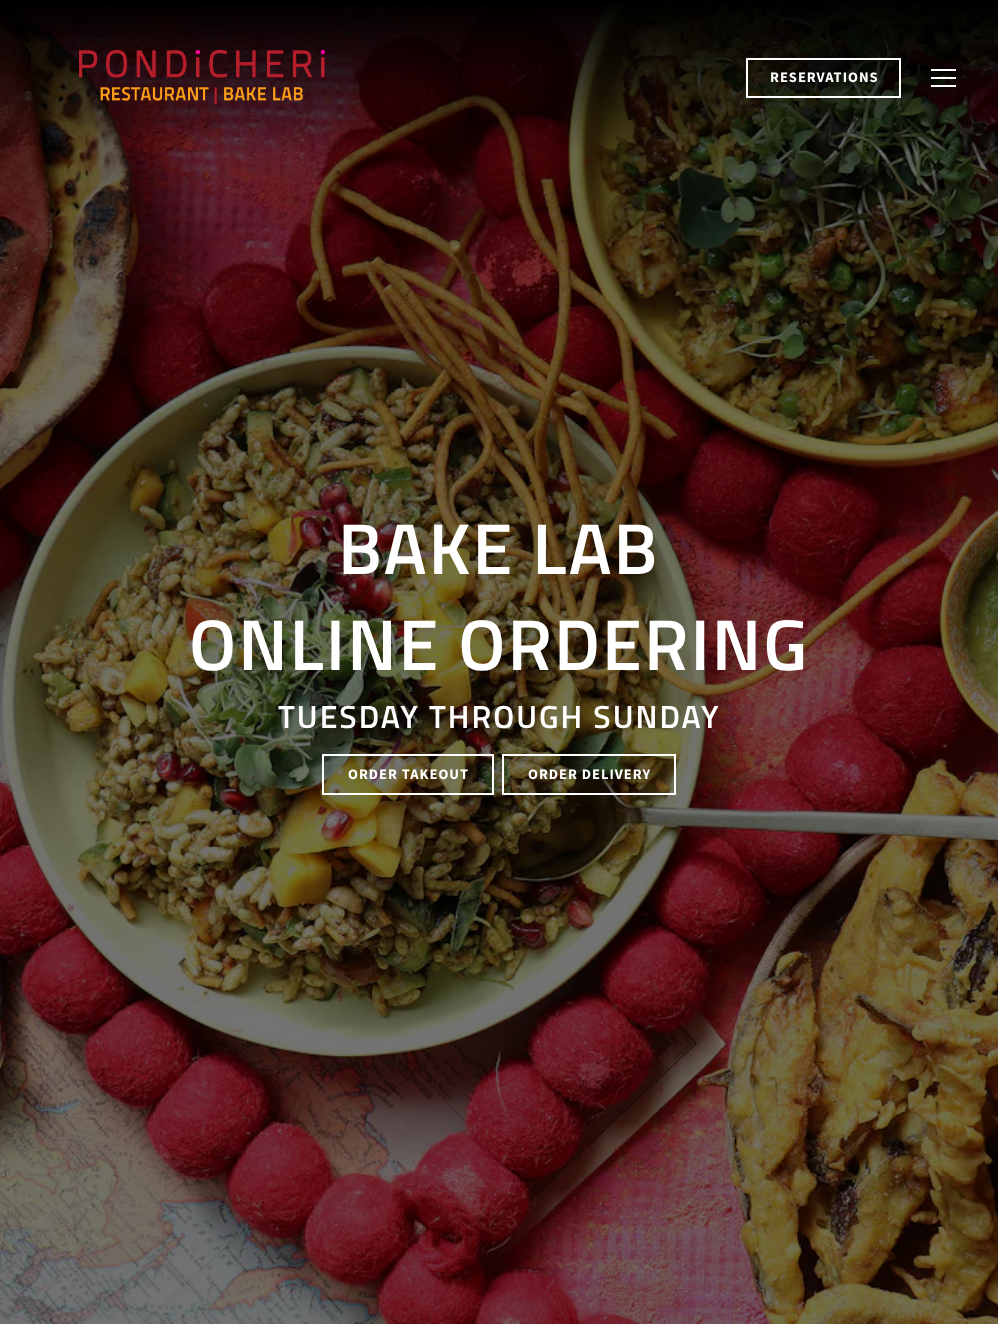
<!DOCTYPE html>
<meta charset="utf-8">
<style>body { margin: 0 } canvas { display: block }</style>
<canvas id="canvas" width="998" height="1324"></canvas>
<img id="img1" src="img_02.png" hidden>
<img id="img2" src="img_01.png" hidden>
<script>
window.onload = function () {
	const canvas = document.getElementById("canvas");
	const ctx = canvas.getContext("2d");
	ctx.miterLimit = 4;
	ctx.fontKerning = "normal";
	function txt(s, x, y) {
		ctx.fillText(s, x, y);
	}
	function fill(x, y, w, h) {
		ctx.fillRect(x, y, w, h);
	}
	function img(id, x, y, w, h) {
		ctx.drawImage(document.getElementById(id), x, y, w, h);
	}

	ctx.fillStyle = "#FFFFFF";
	fill(0, 0, 998, 1324);
	img("img1", 0, 0, 998, 1324);
	img("img2", 79, 50, 246, 54);
	ctx.strokeStyle = "#FFFFFF";
	ctx.lineWidth = 2;
	ctx.strokeRect(747, 59, 153, 38);
	fill(931, 69, 25, 2);
	fill(931, 77, 25, 2);
	fill(931, 85, 25, 2);
	ctx.strokeRect(323, 755, 170, 39);
	ctx.strokeRect(503, 755, 172, 39);
	ctx.letterSpacing = "1px";
	ctx.font = "bold 14.5px Source Sans Pro";
	txt("RESERVATIONS", 770, 82);
	ctx.letterSpacing = "2px";
	ctx.font = "600 72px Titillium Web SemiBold";
	txt("BAKE LAB", 338, 574);
	txt("ONLINE ORDERING", 189, 670);
	ctx.font = "600 32px Titillium Web SemiBold";
	txt("TUESDAY THROUGH SUNDAY", 278, 728);
	ctx.letterSpacing = "1px";
	ctx.font = "bold 14.5px Source Sans Pro";
	txt("ORDER TAKEOUT", 348, 779);
	txt("ORDER DELIVERY", 528, 779);
};
</script>
